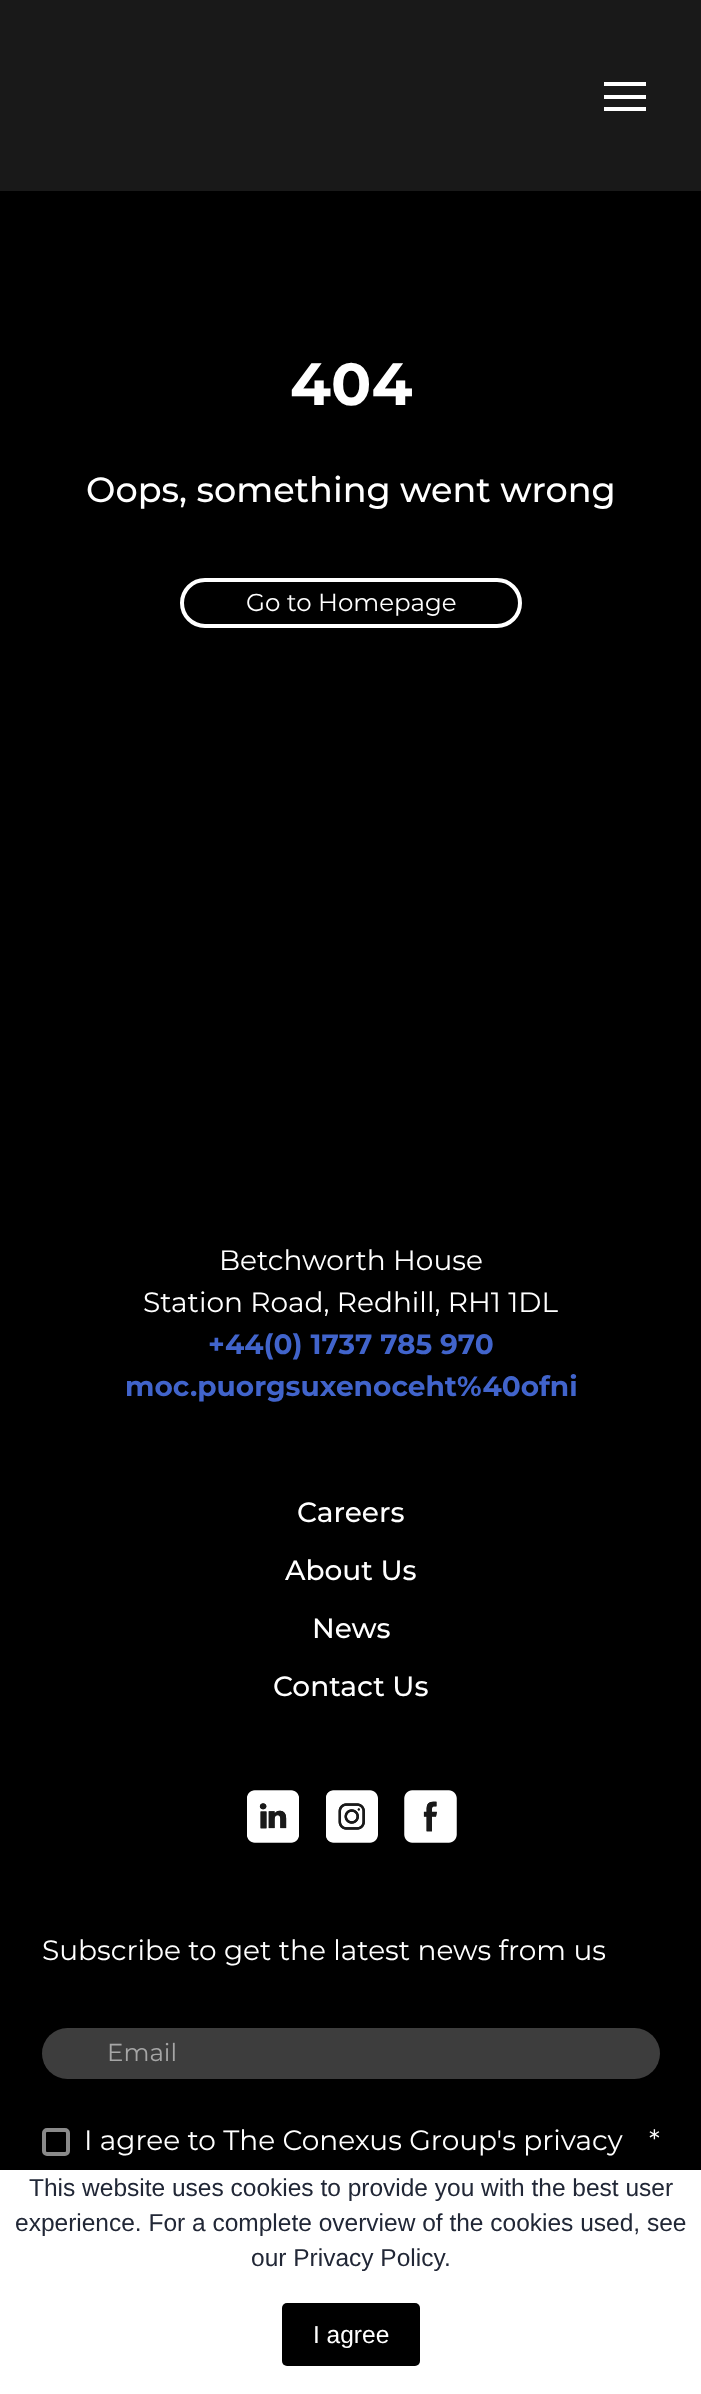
<!DOCTYPE html>
<meta charset="utf-8">
<style>body { margin: 0 } canvas { display: block }</style>
<canvas id="canvas" width="701" height="2394"></canvas>
<img id="img1" src="img_01.png" hidden>
<img id="img2" src="img_02.png" hidden>
<img id="img3" src="img_03.png" hidden>
<script>
window.onload = function () {
	const canvas = document.getElementById("canvas");
	const ctx = canvas.getContext("2d");
	ctx.miterLimit = 4;
	ctx.fontKerning = "normal";
	function txt(s, x, y) {
		ctx.fillText(s, x, y);
	}
	function fill(x, y, w, h) {
		ctx.fillRect(x, y, w, h);
	}
	function round(x, y, w, h, r) {
		ctx.beginPath();
		ctx.roundRect(x, y, w, h, r);
		ctx.fill();
	}
	function img(id, x, y, w, h) {
		ctx.drawImage(document.getElementById(id), x, y, w, h);
	}

	ctx.fillStyle = "#191919";
	fill(0, 0, 701, 2394);
	ctx.fillStyle = "#FFFFFF";
	fill(604, 82, 42, 4);
	fill(604, 95, 42, 4);
	fill(604, 107, 42, 4);
	ctx.fillStyle = "#000000";
	fill(0, 191, 701, 1979);
	ctx.beginPath();
	ctx.roundRect(182, 580, 338, 46, 23);
	ctx.strokeStyle = "#FFFFFF";
	ctx.lineWidth = 4;
	ctx.stroke();
	img("img1", 247, 1790, 52, 53);
	img("img2", 326, 1790, 52, 53);
	img("img3", 404, 1790, 53, 53);
	ctx.fillStyle = "#3D3D3D";
	round(42, 2028, 618, 51, 25.5);
	ctx.beginPath();
	ctx.roundRect(44, 2130, 24, 24, 3);
	ctx.strokeStyle = "#8A8A8A";
	ctx.stroke();
	ctx.fillStyle = "#FFFFFF";
	fill(0, 2170, 701, 224);
	ctx.fillStyle = "#000000";
	round(282, 2303, 138, 63, 5);
	ctx.font = "bold 59.5px Montserrat";
	ctx.fillStyle = "#FFFFFF";
	txt("404", 290, 405);
	ctx.font = "500 35px Montserrat";
	txt("Oops, something went wrong", 86, 502);
	ctx.font = "24.5px Montserrat";
	txt("Go to Homepage", 246, 611);
	ctx.font = "28px Montserrat";
	txt("Betchworth House", 219, 1270);
	txt("Station Road, Redhill, RH1 1DL", 143, 1312);
	ctx.font = "bold 28px Montserrat";
	ctx.fillStyle = "#4164CB";
	txt("+44(0) 1737 785 970", 208, 1354);
	txt("moc.puorgsuxenoceht%40ofni", 125, 1396);
	ctx.font = "500 28px Montserrat";
	ctx.fillStyle = "#FFFFFF";
	txt("Careers", 297, 1522);
	txt("About Us", 285, 1580);
	txt("News", 312, 1638);
	txt("Contact Us", 273, 1696);
	ctx.font = "28px Montserrat";
	txt("Subscribe to get the latest news from us", 42, 1960);
	ctx.font = "24.5px Montserrat";
	ctx.fillStyle = "#A6A6A6";
	txt("Email", 107, 2061);
	ctx.font = "28px Montserrat";
	ctx.fillStyle = "#FFFFFF";
	txt("I agree to The Conexus Group's privacy", 84, 2150);
	txt("*", 649, 2150);
	ctx.font = "24.5px Liberation Sans";
	ctx.fillStyle = "#212736";
	txt("This website uses cookies to provide you with the best user", 29, 2196);
	txt("experience. For a complete overview of the cookies used, see", 15, 2231);
	txt("our Privacy Policy.", 251, 2266);
	ctx.fillStyle = "#FFFFFF";
	txt("I agree", 313, 2343);
};
</script>
